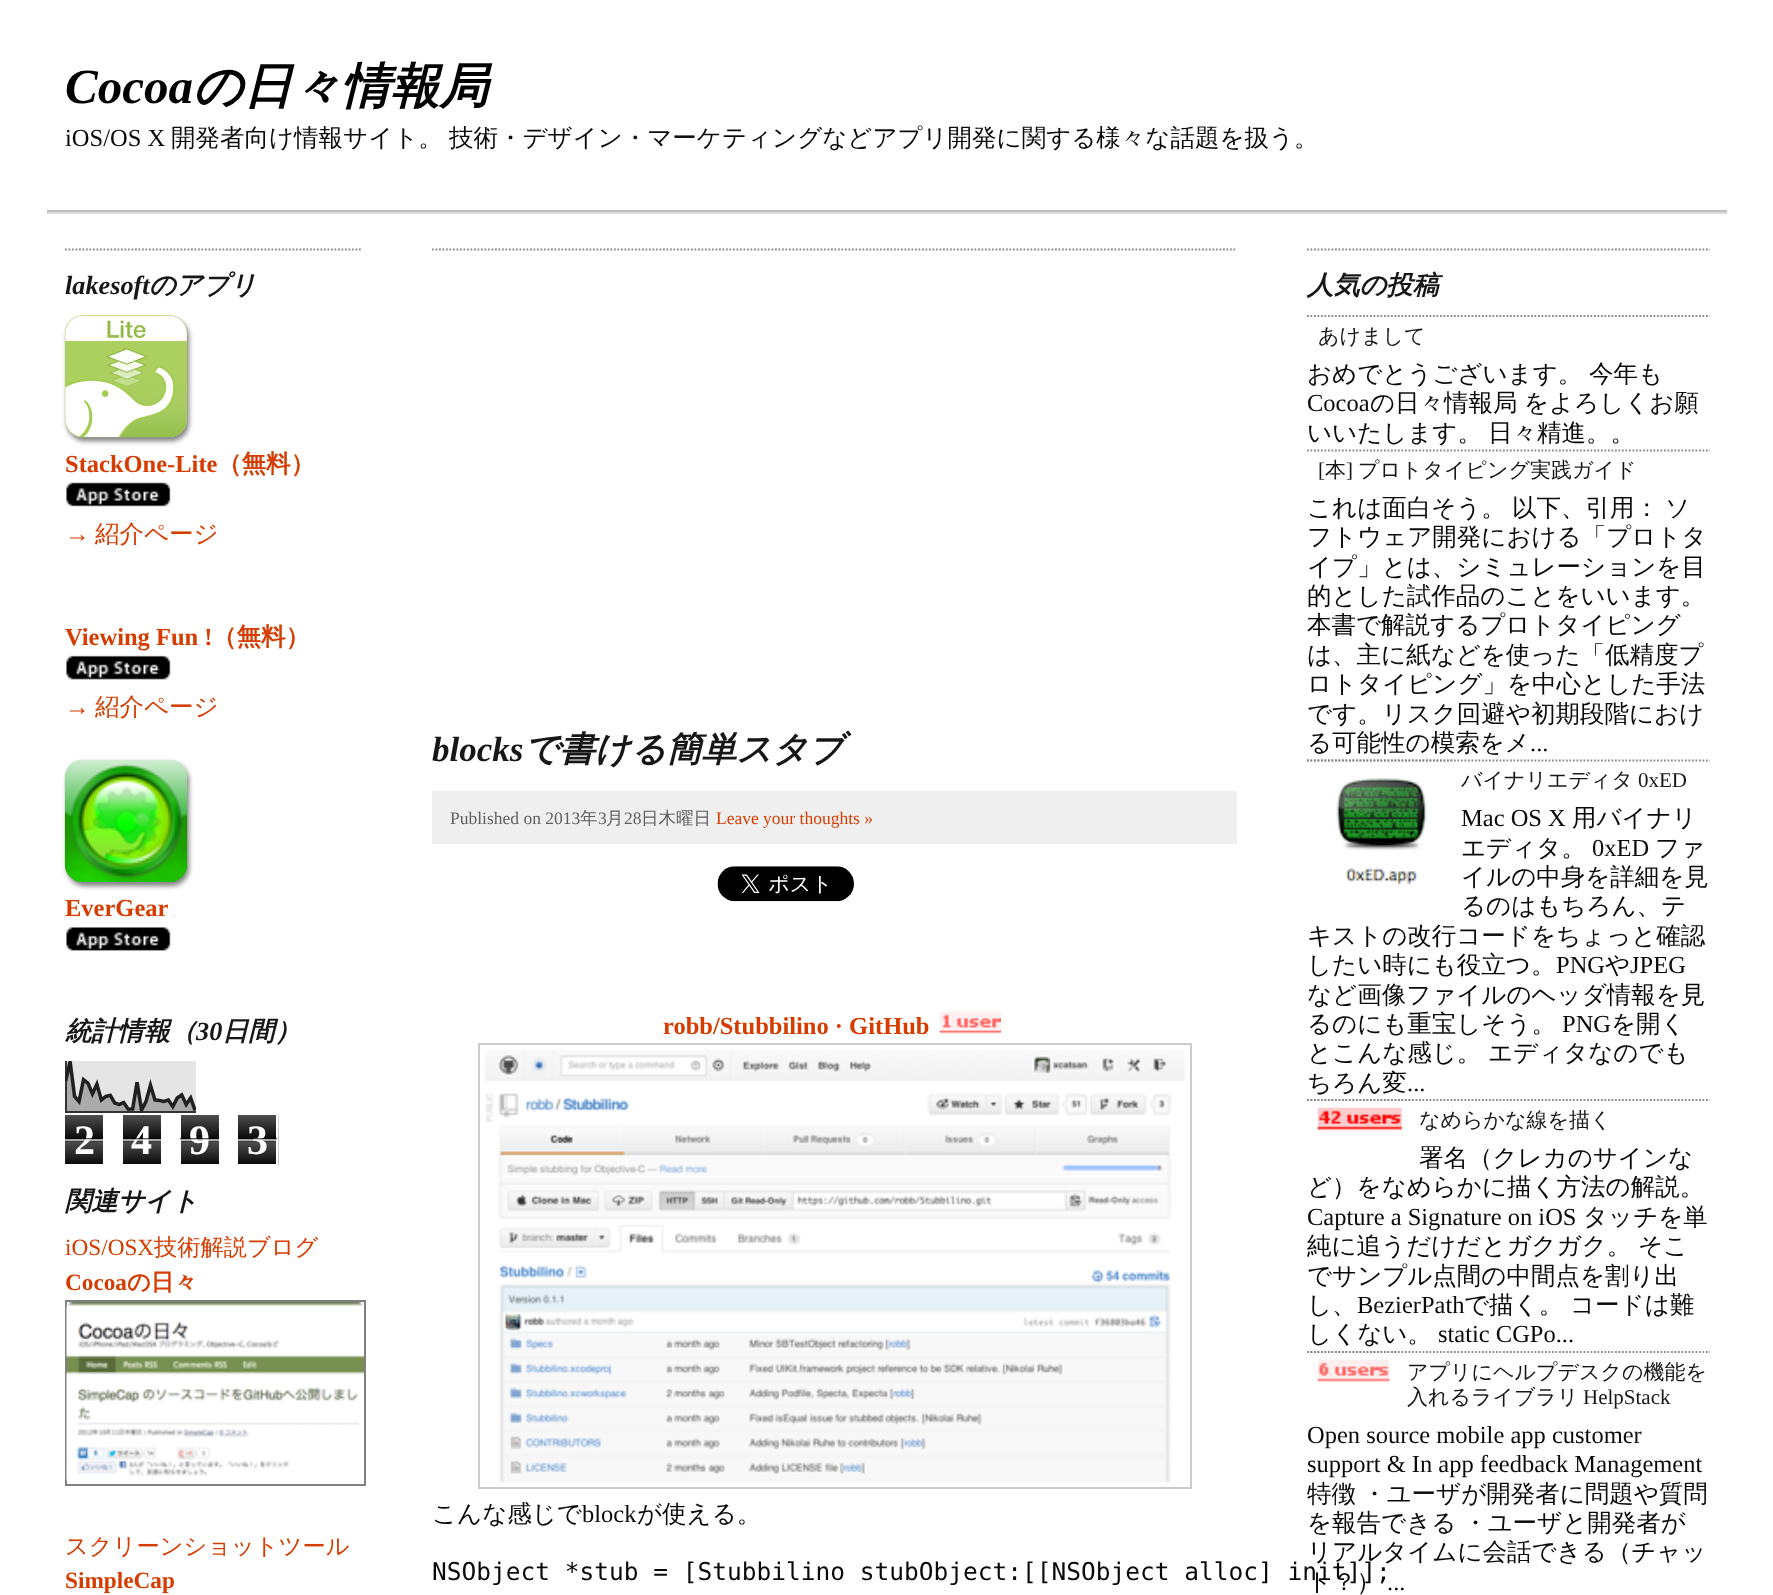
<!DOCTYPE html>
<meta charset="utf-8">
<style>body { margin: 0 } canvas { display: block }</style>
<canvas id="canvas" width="1773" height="1595"></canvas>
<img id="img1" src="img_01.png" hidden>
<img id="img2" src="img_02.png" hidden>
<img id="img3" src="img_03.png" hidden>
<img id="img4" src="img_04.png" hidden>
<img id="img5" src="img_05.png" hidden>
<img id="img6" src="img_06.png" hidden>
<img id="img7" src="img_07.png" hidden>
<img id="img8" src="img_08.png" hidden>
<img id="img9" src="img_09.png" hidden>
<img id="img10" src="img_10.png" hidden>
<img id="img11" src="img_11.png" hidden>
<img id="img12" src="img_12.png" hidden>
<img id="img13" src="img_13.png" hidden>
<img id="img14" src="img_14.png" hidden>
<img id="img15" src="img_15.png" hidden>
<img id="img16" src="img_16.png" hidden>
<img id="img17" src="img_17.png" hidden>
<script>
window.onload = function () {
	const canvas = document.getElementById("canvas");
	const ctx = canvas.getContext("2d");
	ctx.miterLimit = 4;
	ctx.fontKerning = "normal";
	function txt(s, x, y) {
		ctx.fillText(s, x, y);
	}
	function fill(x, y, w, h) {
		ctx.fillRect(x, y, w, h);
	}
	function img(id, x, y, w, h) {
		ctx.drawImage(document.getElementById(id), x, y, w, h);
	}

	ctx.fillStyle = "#FFFFFF";
	fill(0, 0, 1773, 1595);
	ctx.fillStyle = "#BEBEBE";
	fill(47, 210, 1680, 2);
	ctx.fillStyle = "#DADADA";
	fill(47, 212, 1680, 2);
	ctx.beginPath();
	ctx.moveTo(65, 249.5);
	ctx.lineTo(362, 249.5);
	ctx.strokeStyle = "#898989";
	ctx.lineWidth = 1.8;
	ctx.setLineDash([1.75, 1.75]);
	ctx.stroke();
	ctx.fillStyle = "#808080";
	ctx.filter = "blur(2.5px)";
	ctx.beginPath();
	ctx.roundRect(67, 319, 122, 122, 18);
	ctx.fill();
	ctx.filter = "none";
	img("img1", 64, 315, 124, 123);
	img("img2", 66, 482, 105, 25);
	img("img3", 66, 655, 105, 25);
	ctx.filter = "blur(2.5px)";
	ctx.beginPath();
	ctx.roundRect(67, 763, 122, 123, 18);
	ctx.fill();
	ctx.filter = "none";
	img("img4", 64, 759, 124, 123);
	img("img5", 66, 927, 105, 24);
	img("img6", 65, 1061, 131, 52);
	img("img7", 65, 1115, 38, 49);
	img("img8", 123, 1115, 38, 49);
	img("img9", 181, 1115, 38, 49);
	img("img10", 238, 1114, 41, 52);
	ctx.strokeStyle = "#FFFFFF";
	ctx.lineWidth = 2;
	ctx.setLineDash([]);
	ctx.strokeRect(237, 1114, 40, 51);
	ctx.strokeStyle = "#808080";
	ctx.strokeRect(66, 1301, 299, 184);
	img("img11", 66, 1302, 298, 180);
	ctx.beginPath();
	ctx.moveTo(432, 249.5);
	ctx.lineTo(1237, 249.5);
	ctx.strokeStyle = "#898989";
	ctx.lineWidth = 1.8;
	ctx.setLineDash([1.75, 1.75]);
	ctx.stroke();
	ctx.fillStyle = "#EFEFEF";
	fill(432, 791, 805, 53);
	img("img12", 717, 866, 137, 36);
	img("img13", 939, 1011, 62, 24);
	ctx.strokeStyle = "#CCCCCC";
	ctx.lineWidth = 2;
	ctx.setLineDash([]);
	ctx.strokeRect(479, 1044, 712, 444);
	img("img14", 485, 1050, 700, 433);
	ctx.beginPath();
	ctx.moveTo(1307, 249.5);
	ctx.lineTo(1710, 249.5);
	ctx.strokeStyle = "#898989";
	ctx.lineWidth = 1.8;
	ctx.setLineDash([1.75, 1.75]);
	ctx.stroke();
	ctx.beginPath();
	ctx.moveTo(1307, 316);
	ctx.lineTo(1710, 316);
	ctx.stroke();
	ctx.beginPath();
	ctx.moveTo(1307, 450.5);
	ctx.lineTo(1710, 450.5);
	ctx.stroke();
	ctx.beginPath();
	ctx.moveTo(1307, 760.5);
	ctx.lineTo(1710, 760.5);
	ctx.stroke();
	ctx.beginPath();
	ctx.moveTo(1307, 760.5);
	ctx.lineTo(1452.5, 760.5);
	ctx.stroke();
	img("img15", 1336, 777, 91, 108);
	ctx.beginPath();
	ctx.moveTo(1307, 1100);
	ctx.lineTo(1710, 1100);
	ctx.stroke();
	ctx.beginPath();
	ctx.moveTo(1307, 1100);
	ctx.lineTo(1410.5, 1100);
	ctx.stroke();
	img("img16", 1317, 1107, 85, 24);
	ctx.beginPath();
	ctx.moveTo(1307, 1352);
	ctx.lineTo(1710, 1352);
	ctx.stroke();
	ctx.beginPath();
	ctx.moveTo(1307, 1352);
	ctx.lineTo(1398, 1352);
	ctx.stroke();
	img("img17", 1317, 1359, 73, 24);
	ctx.font = "italic bold 49px Liberation Serif";
	ctx.fillStyle = "#000000";
	txt("Cocoa", 65, 103);
	ctx.font = "italic bold 49px WenQuanYi Zen Hei";
	txt("の日々情報局", 193, 103);
	ctx.font = "24.5px Liberation Serif";
	ctx.fillStyle = "#0A0A0A";
	txt("iOS/OS X", 65, 146);
	ctx.font = "500 24.5px WenQuanYi Zen Hei";
	txt("開発者向け情報サイト。", 171, 146);
	txt("技術・デザイン・マーケティングなどアプリ開発に関する様々な話題を扱う。", 449, 146);
	ctx.font = "italic bold 26.25px Liberation Serif";
	ctx.fillStyle = "#171717";
	txt("lakesoft", 65, 294);
	ctx.font = "italic bold 26.25px WenQuanYi Zen Hei";
	txt("のアプリ", 149, 294);
	ctx.font = "bold 24.5px Liberation Serif";
	ctx.fillStyle = "#D63C00";
	txt("StackOne-Lite", 65, 472);
	ctx.font = "bold 24.5px WenQuanYi Zen Hei";
	txt("（無料）", 217, 472);
	ctx.font = "24.5px Liberation Serif";
	txt("→", 65, 542);
	ctx.font = "500 24.5px WenQuanYi Zen Hei";
	txt("紹介ページ", 95, 542);
	ctx.font = "bold 24.5px Liberation Serif";
	txt("Viewing Fun !", 65, 645);
	ctx.font = "bold 24.5px WenQuanYi Zen Hei";
	txt("（無料）", 212, 645);
	ctx.font = "24.5px Liberation Serif";
	txt("→", 65, 715);
	ctx.font = "500 24.5px WenQuanYi Zen Hei";
	txt("紹介ページ", 95, 715);
	ctx.font = "bold 24.5px Liberation Serif";
	txt("EverGear", 65, 916);
	ctx.font = "italic bold 26.25px WenQuanYi Zen Hei";
	ctx.fillStyle = "#171717";
	txt("統計情報（", 65, 1040);
	ctx.font = "italic bold 26.25px Liberation Serif";
	txt("30", 196, 1040);
	ctx.font = "italic bold 26.25px WenQuanYi Zen Hei";
	txt("日間）", 222, 1040);
	ctx.font = "bold 42px Liberation Serif";
	ctx.fillStyle = "#FFFFFF";
	txt("2", 74, 1154);
	ctx.fillStyle = "rgba(0, 0, 0, 0.65)";
	fill(65, 1138, 38, 2);
	ctx.fillStyle = "rgba(255, 255, 255, 0.65)";
	fill(65, 1139, 38, 2);
	ctx.fillStyle = "#FFFFFF";
	txt("4", 131, 1154);
	ctx.fillStyle = "rgba(0, 0, 0, 0.65)";
	fill(123, 1138, 38, 2);
	ctx.fillStyle = "rgba(255, 255, 255, 0.65)";
	fill(123, 1139, 38, 2);
	ctx.fillStyle = "#FFFFFF";
	txt("9", 189, 1154);
	ctx.fillStyle = "rgba(0, 0, 0, 0.65)";
	fill(180, 1138, 39, 2);
	ctx.fillStyle = "rgba(255, 255, 255, 0.65)";
	fill(180, 1139, 39, 2);
	ctx.fillStyle = "#FFFFFF";
	txt("3", 247, 1154);
	ctx.fillStyle = "rgba(0, 0, 0, 0.65)";
	fill(238, 1138, 39, 2);
	ctx.fillStyle = "rgba(255, 255, 255, 0.65)";
	fill(238, 1139, 39, 2);
	ctx.font = "italic bold 26.25px WenQuanYi Zen Hei";
	ctx.fillStyle = "#171717";
	txt("関連サイト", 65, 1210);
	ctx.font = "23.25px Liberation Serif";
	ctx.fillStyle = "#D63C00";
	txt("iOS/OSX", 65, 1255);
	ctx.font = "500 23.25px WenQuanYi Zen Hei";
	txt("技術解説ブログ", 154, 1255);
	ctx.font = "bold 23.25px Liberation Serif";
	txt("Cocoa", 65, 1290);
	ctx.font = "bold 23.25px WenQuanYi Zen Hei";
	txt("の日々", 127, 1290);
	ctx.font = "500 23.25px WenQuanYi Zen Hei";
	txt("スクリーンショットツール", 65, 1554);
	ctx.font = "bold 23.25px Liberation Serif";
	txt("SimpleCap", 65, 1588);
	ctx.font = "italic bold 35px Liberation Serif";
	ctx.fillStyle = "#171717";
	txt("blocks", 432, 761);
	ctx.font = "italic bold 35px WenQuanYi Zen Hei";
	txt("で書ける簡単スタブ", 524, 761);
	ctx.font = "17.5px Liberation Serif";
	ctx.fillStyle = "#606060";
	txt("Published on 2013", 450, 824);
	ctx.font = "500 17.5px WenQuanYi Zen Hei";
	txt("年", 580, 824);
	ctx.font = "17.5px Liberation Serif";
	txt("3", 598, 824);
	ctx.font = "500 17.5px WenQuanYi Zen Hei";
	txt("月", 606, 824);
	ctx.font = "17.5px Liberation Serif";
	txt("28", 624, 824);
	ctx.font = "500 17.5px WenQuanYi Zen Hei";
	txt("日木曜日", 641, 824);
	ctx.font = "17.5px Liberation Serif";
	ctx.fillStyle = "#D63C00";
	txt("Leave your thoughts »", 716, 824);
	ctx.font = "bold 24.5px Liberation Serif";
	txt("robb/Stubbilino · GitHub", 663, 1034);
	ctx.font = "500 24.5px WenQuanYi Zen Hei";
	ctx.fillStyle = "#0A0A0A";
	txt("こんな感じで", 432, 1522);
	ctx.font = "24.5px Liberation Serif";
	txt("block", 582, 1522);
	ctx.font = "500 24.5px WenQuanYi Zen Hei";
	txt("が使える。", 637, 1522);
	ctx.font = "italic bold 26.25px WenQuanYi Zen Hei";
	ctx.fillStyle = "#171717";
	txt("人気の投稿", 1307, 294);
	ctx.font = "500 21px WenQuanYi Zen Hei";
	txt("あけまして", 1318, 343);
	ctx.font = "500 24.5px WenQuanYi Zen Hei";
	ctx.fillStyle = "#0A0A0A";
	txt("おめでとうございます。", 1307, 382);
	txt("今年も", 1589, 382);
	ctx.font = "24.5px Liberation Serif";
	txt("Cocoa", 1307, 411);
	ctx.wordSpacing = "-1px";
	ctx.font = "500 24.5px WenQuanYi Zen Hei";
	txt("の日々情報局 をよろしくお願", 1370, 411);
	ctx.wordSpacing = "0px";
	txt("いいたします。", 1307, 441);
	txt("日々精進。。", 1488, 441);
	ctx.font = "21px Liberation Serif";
	ctx.fillStyle = "#171717";
	txt("[", 1318, 477);
	ctx.font = "500 21px WenQuanYi Zen Hei";
	txt("本", 1325, 477);
	ctx.font = "21px Liberation Serif";
	txt("]", 1346, 477);
	ctx.font = "500 21px WenQuanYi Zen Hei";
	txt("プロトタイピング実践ガイド", 1358, 477);
	ctx.font = "500 24.5px WenQuanYi Zen Hei";
	ctx.fillStyle = "#0A0A0A";
	txt("これは面白そう。", 1307, 516);
	txt("以下、引用：", 1512, 516);
	txt("ソ", 1665, 516);
	txt("フトウェア開発における「プロトタ", 1307, 545);
	txt("イプ」とは、シミュレーションを目", 1307, 575);
	txt("的とした試作品のことをいいます。", 1307, 604);
	txt("本書で解説するプロトタイピング", 1307, 633);
	txt("は、主に紙などを使った「低精度プ", 1307, 663);
	txt("ロトタイピング」を中心とした手法", 1307, 692);
	txt("です。リスク回避や初期段階におけ", 1307, 722);
	txt("る可能性の模索をメ", 1307, 751);
	ctx.font = "24.5px Liberation Serif";
	txt("...", 1530, 751);
	ctx.font = "500 21px WenQuanYi Zen Hei";
	ctx.fillStyle = "#171717";
	txt("バイナリエディタ", 1461, 787);
	ctx.font = "21px Liberation Serif";
	txt("0xED", 1638, 787);
	ctx.font = "24.5px Liberation Serif";
	ctx.fillStyle = "#0A0A0A";
	txt("Mac OS X", 1461, 826);
	ctx.font = "500 24.5px WenQuanYi Zen Hei";
	txt("用バイナリ", 1572, 826);
	txt("エディタ。", 1461, 856);
	ctx.font = "24.5px Liberation Serif";
	txt("0xED", 1592, 856);
	ctx.font = "500 24.5px WenQuanYi Zen Hei";
	txt("ファ", 1655, 856);
	txt("イルの中身を詳細を見", 1461, 885);
	txt("るのはもちろん、テ", 1461, 914);
	txt("キストの改行コードをちょっと確認", 1307, 944);
	txt("したい時にも役立つ。", 1307, 973);
	ctx.font = "24.5px Liberation Serif";
	txt("PNG", 1556, 973);
	ctx.font = "500 24.5px WenQuanYi Zen Hei";
	txt("や", 1605, 973);
	ctx.font = "24.5px Liberation Serif";
	txt("JPEG", 1630, 973);
	ctx.font = "500 24.5px WenQuanYi Zen Hei";
	txt("など画像ファイルのヘッダ情報を見", 1307, 1003);
	txt("るのにも重宝しそう。", 1307, 1032);
	ctx.font = "24.5px Liberation Serif";
	txt("PNG", 1562, 1032);
	ctx.font = "500 24.5px WenQuanYi Zen Hei";
	txt("を開く", 1611, 1032);
	txt("とこんな感じ。", 1307, 1061);
	txt("エディタなのでも", 1488, 1061);
	txt("ちろん変", 1307, 1091);
	ctx.font = "24.5px Liberation Serif";
	txt("...", 1407, 1091);
	ctx.font = "500 21px WenQuanYi Zen Hei";
	ctx.fillStyle = "#171717";
	txt("なめらかな線を描く", 1419, 1127);
	ctx.font = "500 24.5px WenQuanYi Zen Hei";
	ctx.fillStyle = "#0A0A0A";
	txt("署名（クレカのサインな", 1419, 1166);
	txt("ど）をなめらかに描く方法の解説。", 1307, 1195);
	ctx.font = "24.5px Liberation Serif";
	txt("Capture a Signature on iOS", 1307, 1225);
	ctx.font = "500 24.5px WenQuanYi Zen Hei";
	txt("タッチを単", 1583, 1225);
	txt("純に追うだけだとガクガク。", 1307, 1254);
	txt("そこ", 1638, 1254);
	txt("でサンプル点間の中間点を割り出", 1307, 1284);
	txt("し、", 1307, 1313);
	ctx.font = "24.5px Liberation Serif";
	txt("BezierPath", 1357, 1313);
	ctx.font = "500 24.5px WenQuanYi Zen Hei";
	txt("で描く。", 1464, 1313);
	txt("コードは難", 1570, 1313);
	txt("しくない。", 1307, 1342);
	ctx.font = "24.5px Liberation Serif";
	txt("static CGPo...", 1438, 1342);
	ctx.font = "500 21px WenQuanYi Zen Hei";
	ctx.fillStyle = "#171717";
	txt("アプリにヘルプデスクの機能を", 1407, 1379);
	txt("入れるライブラリ", 1407, 1404);
	ctx.font = "21px Liberation Serif";
	txt("HelpStack", 1583, 1404);
	ctx.font = "24.5px Liberation Serif";
	ctx.fillStyle = "#0A0A0A";
	txt("Open source mobile app customer", 1307, 1443);
	txt("support & In app feedback Management", 1307, 1472);
	ctx.font = "500 24.5px WenQuanYi Zen Hei";
	txt("特徴", 1307, 1502);
	txt("・ユーザが開発者に問題や質問", 1362, 1502);
	txt("を報告できる", 1307, 1531);
	txt("・ユーザと開発者が", 1463, 1531);
	txt("リアルタイムに会話できる（チャッ", 1307, 1560);
	txt("ト？）", 1307, 1590);
	ctx.font = "24.5px DejaVu Sans Mono";
	txt("NSObject *stub = [Stubbilino stubObject:[[NSObject alloc] init]];", 432, 1580);
	ctx.font = "24.5px Liberation Serif";
	txt("...", 1387, 1590);
};
</script>
